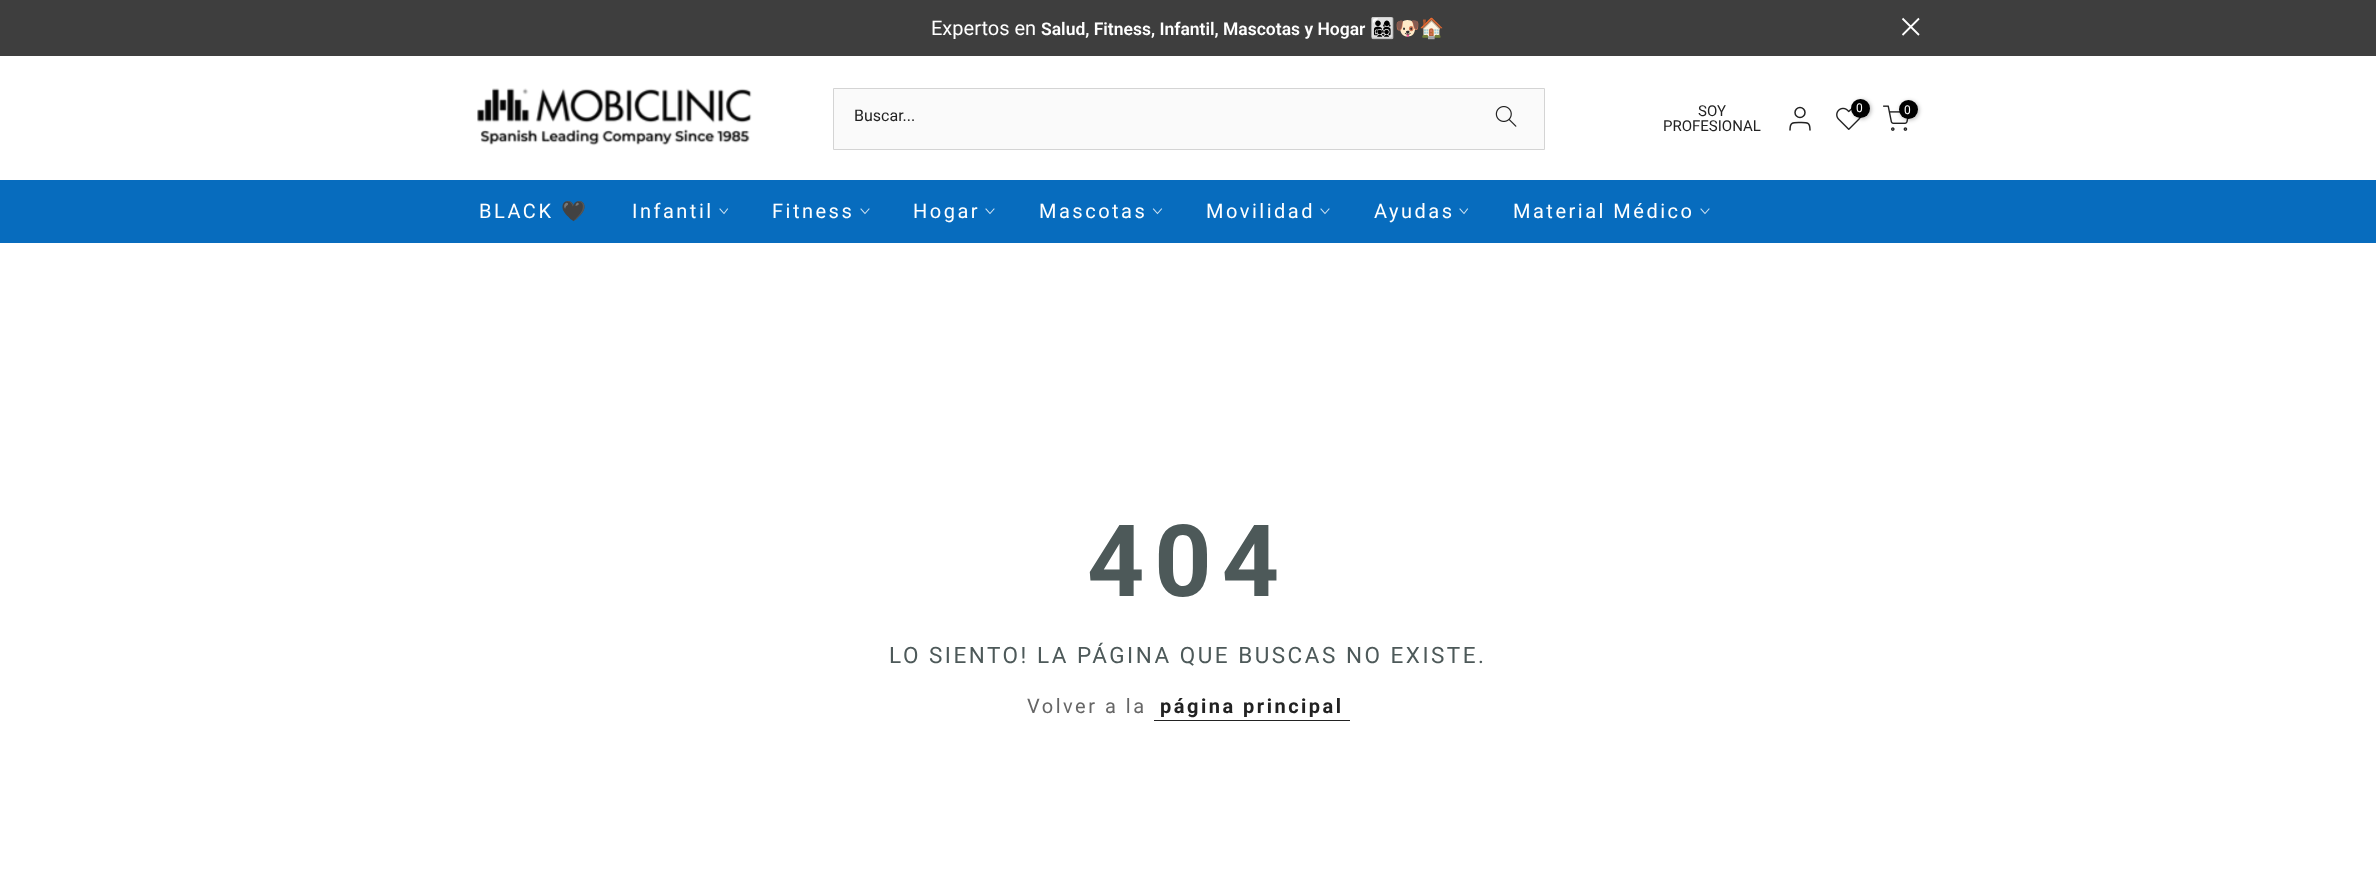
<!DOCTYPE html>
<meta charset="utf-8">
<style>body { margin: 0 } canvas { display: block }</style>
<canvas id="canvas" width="2376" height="871"></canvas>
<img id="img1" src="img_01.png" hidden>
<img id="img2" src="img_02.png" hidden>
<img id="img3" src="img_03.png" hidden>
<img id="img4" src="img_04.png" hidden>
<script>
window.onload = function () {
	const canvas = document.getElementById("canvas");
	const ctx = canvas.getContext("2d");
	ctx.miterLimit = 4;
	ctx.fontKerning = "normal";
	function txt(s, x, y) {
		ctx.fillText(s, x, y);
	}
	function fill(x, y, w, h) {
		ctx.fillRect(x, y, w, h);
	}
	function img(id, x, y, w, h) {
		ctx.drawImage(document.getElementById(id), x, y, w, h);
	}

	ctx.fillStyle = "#FFFFFF";
	fill(0, 0, 2376, 871);
	ctx.fillStyle = "#3E3E3E";
	fill(0, 0, 2376, 56);
	ctx.beginPath();
	ctx.moveTo(1919, 18.5);
	ctx.lineTo(1902.5, 35);
	ctx.moveTo(1919, 35);
	ctx.lineTo(1902.5, 18.5);
	ctx.strokeStyle = "#FFFFFF";
	ctx.lineWidth = 1.8;
	ctx.stroke();
	img("img1", 477, 88, 275, 58);
	ctx.fillStyle = "#FAFAFA";
	ctx.beginPath();
	ctx.rect(833.5, 88.5, 711, 61);
	ctx.fill();
	ctx.strokeStyle = "#D4D4D4";
	ctx.lineWidth = 1;
	ctx.stroke();
	img("img2", 1495, 106, 22, 21);
	ctx.beginPath();
	ctx.arc(1800, 112.5, 5, 0, Math.PI * 2);
	ctx.strokeStyle = "#222222";
	ctx.lineWidth = 1.5;
	ctx.stroke();
	ctx.beginPath();
	ctx.moveTo(1810, 130);
	ctx.bezierCurveTo(1810, 122, 1807, 122.5, 1800, 122.5);
	ctx.bezierCurveTo(1793, 122.5, 1790, 122, 1790, 130);
	ctx.lineCap = "round";
	ctx.lineJoin = "round";
	ctx.stroke();
	img("img3", 1836, 107, 25, 23);
	ctx.fillStyle = "rgba(0, 0, 0, 0.3)";
	ctx.filter = "blur(2px)";
	ctx.beginPath();
	ctx.roundRect(1853, 100, 18, 19, 9);
	ctx.fill();
	ctx.filter = "none";
	ctx.fillStyle = "#000000";
	ctx.beginPath();
	ctx.arc(1860.5, 108.5, 9.5, 0, Math.PI * 2);
	ctx.fill();
	img("img4", 1883, 105, 26, 26);
	ctx.fillStyle = "rgba(0, 0, 0, 0.3)";
	ctx.filter = "blur(2px)";
	ctx.beginPath();
	ctx.roundRect(1900, 101, 19, 19, 9.5);
	ctx.fill();
	ctx.filter = "none";
	ctx.fillStyle = "#000000";
	ctx.beginPath();
	ctx.arc(1908.5, 109.5, 9.5, 0, Math.PI * 2);
	ctx.fill();
	ctx.fillStyle = "#076CBE";
	fill(0, 180, 2376, 63);
	ctx.beginPath();
	ctx.moveTo(727.5, 209);
	ctx.lineTo(724, 213.5);
	ctx.lineTo(720, 209);
	ctx.strokeStyle = "#CDE2F2";
	ctx.lineWidth = 1.1;
	ctx.lineCap = "square";
	ctx.lineJoin = "miter";
	ctx.stroke();
	ctx.beginPath();
	ctx.moveTo(869, 209);
	ctx.lineTo(865, 213.5);
	ctx.lineTo(861, 209);
	ctx.stroke();
	ctx.beginPath();
	ctx.moveTo(994, 209);
	ctx.lineTo(990, 213.5);
	ctx.lineTo(986, 209);
	ctx.stroke();
	ctx.beginPath();
	ctx.moveTo(1161.5, 209);
	ctx.lineTo(1157.5, 213.5);
	ctx.lineTo(1153.5, 209);
	ctx.stroke();
	ctx.beginPath();
	ctx.moveTo(1329, 209);
	ctx.lineTo(1325, 213.5);
	ctx.lineTo(1321, 209);
	ctx.stroke();
	ctx.beginPath();
	ctx.moveTo(1467.5, 209);
	ctx.lineTo(1464, 213.5);
	ctx.lineTo(1460, 209);
	ctx.stroke();
	ctx.beginPath();
	ctx.moveTo(1709, 209);
	ctx.lineTo(1705, 213.5);
	ctx.lineTo(1701, 209);
	ctx.stroke();
	ctx.fillStyle = "#222222";
	fill(1154, 720, 196, 1);
	ctx.font = "20px Roboto";
	ctx.fillStyle = "#FFFFFF";
	txt("Expertos en", 931, 35);
	ctx.font = "600 17.5px Roboto";
	txt("Salud, Fitness, Infantil, Mascotas y Hogar", 1041, 35);
	ctx.font = "20px Noto Color Emoji";
	txt("👨‍👩‍👧‍👦🐶🏠", 1370, 35);
	ctx.font = "16px Roboto";
	ctx.fillStyle = "#222222";
	txt("Buscar...", 854, 121);
	ctx.font = "15px Roboto";
	txt("SOY", 1698, 116);
	txt("PROFESIONAL", 1663, 131);
	ctx.font = "12px Roboto";
	ctx.fillStyle = "#FFFFFF";
	txt("0", 1856, 112);
	txt("0", 1904, 114);
	ctx.letterSpacing = "2.5px";
	ctx.font = "20px Roboto";
	txt("BLACK", 479, 218);
	ctx.font = "20px Noto Color Emoji";
	txt("🖤", 561, 218);
	ctx.font = "20px Roboto";
	txt("Infantil", 632, 218);
	txt("Fitness", 772, 218);
	txt("Hogar", 913, 218);
	txt("Mascotas", 1039, 218);
	txt("Movilidad", 1206, 218);
	txt("Ayudas", 1374, 218);
	txt("Material Médico", 1513, 218);
	ctx.letterSpacing = "10px";
	ctx.font = "bold 100px Roboto";
	ctx.fillStyle = "#4D5959";
	txt("404", 1087, 596);
	ctx.letterSpacing = "2.5px";
	ctx.font = "22.5px Roboto";
	txt("LO SIENTO! LA PÁGINA QUE BUSCAS NO EXISTE.", 889, 663);
	ctx.font = "20px Roboto";
	ctx.fillStyle = "#666666";
	txt("Volver a la", 1027, 713);
	ctx.font = "bold 20px Roboto";
	ctx.fillStyle = "#222222";
	txt("página principal", 1160, 713);
};
</script>
